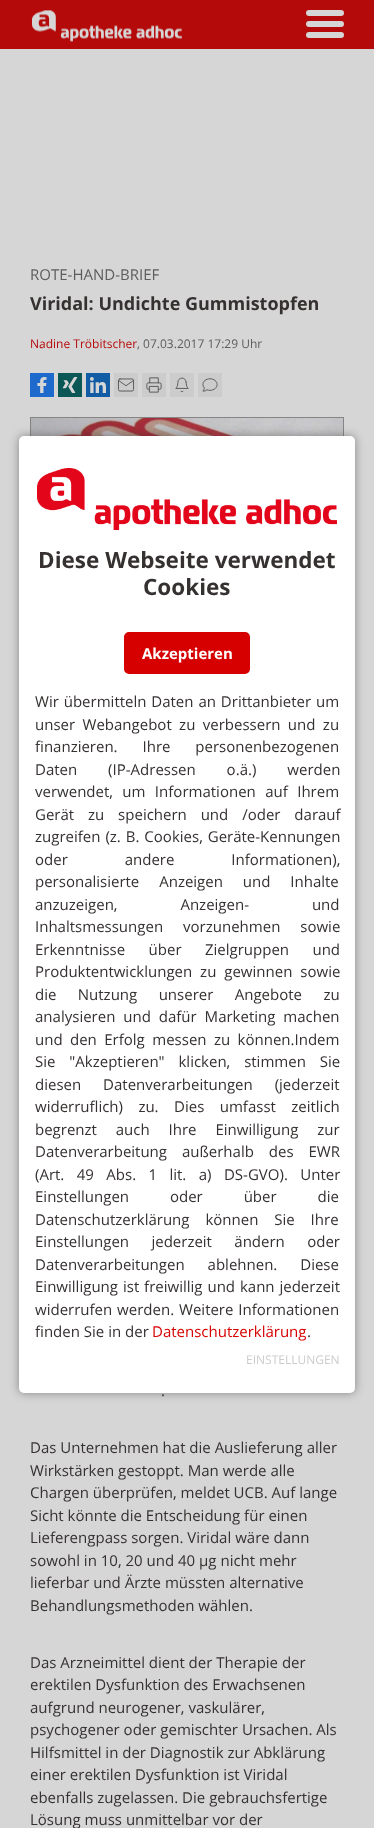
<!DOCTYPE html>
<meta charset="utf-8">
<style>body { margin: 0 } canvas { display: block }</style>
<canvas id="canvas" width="374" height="1828"></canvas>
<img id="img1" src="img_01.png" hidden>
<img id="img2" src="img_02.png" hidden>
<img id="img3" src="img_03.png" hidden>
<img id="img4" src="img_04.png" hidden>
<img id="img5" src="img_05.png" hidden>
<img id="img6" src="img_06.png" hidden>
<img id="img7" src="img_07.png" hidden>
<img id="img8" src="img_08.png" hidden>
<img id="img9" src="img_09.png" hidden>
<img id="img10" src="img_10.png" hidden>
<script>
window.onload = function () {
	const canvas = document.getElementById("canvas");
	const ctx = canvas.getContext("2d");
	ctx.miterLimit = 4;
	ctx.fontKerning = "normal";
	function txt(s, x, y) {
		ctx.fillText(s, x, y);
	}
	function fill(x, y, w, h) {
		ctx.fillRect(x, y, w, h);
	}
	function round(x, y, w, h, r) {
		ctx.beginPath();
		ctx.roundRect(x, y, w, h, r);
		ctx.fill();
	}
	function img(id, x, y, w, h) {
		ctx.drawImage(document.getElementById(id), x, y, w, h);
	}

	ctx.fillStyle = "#D6D6D6";
	fill(0, 0, 374, 1828);
	ctx.fillStyle = "#B50A0A";
	fill(0, 0, 374, 49);
	img("img1", 31, 10, 151, 32);
	ctx.fillStyle = "#D6D6D6";
	round(306, 10, 38, 6, 3);
	round(306, 21, 38, 6, 3);
	round(306, 32, 38, 6, 3);
	img("img2", 30, 373, 24, 24);
	img("img3", 58, 373, 24, 24);
	img("img4", 86, 373, 24, 24);
	img("img5", 114, 373, 24, 24);
	img("img6", 142, 373, 24, 24);
	img("img7", 170, 373, 24, 24);
	img("img8", 198, 373, 24, 24);
	ctx.strokeStyle = "#858585";
	ctx.strokeRect(30.5, 417.5, 313, 176);
	img("img9", 31, 418, 312, 18);
	ctx.fillStyle = "rgba(51, 51, 51, 0.5)";
	ctx.filter = "blur(5px)";
	ctx.beginPath();
	ctx.roundRect(19, 436, 336, 957, 5);
	ctx.fill();
	ctx.filter = "none";
	ctx.fillStyle = "#FFFFFF";
	round(19, 436, 336, 957, 5);
	img("img10", 37, 468, 300, 62);
	ctx.fillStyle = "#D70000";
	ctx.beginPath();
	ctx.roundRect(125, 633, 124, 40, 4);
	ctx.fill();
	ctx.strokeStyle = "#D70000";
	ctx.lineWidth = 2;
	ctx.stroke();
	ctx.font = "15px Open Sans";
	ctx.fillStyle = "#5C5C5C";
	txt("ROTE-HAND-BRIEF", 30, 280);
	ctx.font = "bold 18px Open Sans";
	ctx.fillStyle = "#363131";
	txt("Viridal: Undichte Gummistopfen", 30, 310);
	ctx.font = "12px Open Sans";
	ctx.fillStyle = "#B50A0A";
	txt("Nadine Tröbitscher", 30, 348);
	ctx.fillStyle = "#5C5C5C";
	txt(", 07.03.2017 17:29 Uhr", 137, 348);
	ctx.font = "15px Open Sans";
	ctx.fillStyle = "#363131";
	txt(".", 161, 1396);
	txt("Das Unternehmen hat die Auslieferung aller", 30, 1453);
	txt("Wirkstärken gestoppt. Man werde alle", 30, 1476);
	txt("Chargen überprüfen, meldet UCB. Auf lange", 30, 1498);
	txt("Sicht könnte die Entscheidung für einen", 30, 1521);
	txt("Lieferengpass sorgen. Viridal wäre dann", 30, 1543);
	txt("sowohl in 10, 20 und 40 µg nicht mehr", 30, 1566);
	txt("lieferbar und Ärzte müssten alternative", 30, 1588);
	txt("Behandlungsmethoden wählen.", 30, 1611);
	txt("Das Arzneimittel dient der Therapie der", 30, 1668);
	txt("erektilen Dysfunktion des Erwachsenen", 30, 1690);
	txt("aufgrund neurogener, vaskulärer,", 30, 1713);
	txt("psychogener oder gemischter Ursachen. Als", 30, 1735);
	txt("Hilfsmittel in der Diagnostik zur Abklärung", 30, 1758);
	txt("einer erektilen Dysfunktion ist Viridal", 30, 1780);
	txt("ebenfalls zugelassen. Die gebrauchsfertige", 30, 1803);
	txt("Lösung muss unmittelbar vor der", 30, 1825);
	ctx.font = "bold 22.5px Open Sans";
	txt("Diese Webseite verwendet", 38, 568);
	txt("Cookies", 143, 595);
	ctx.font = "bold 15px Open Sans";
	ctx.fillStyle = "#FFFFFF";
	txt("Akzeptieren", 142, 659);
	ctx.wordSpacing = "1px";
	ctx.font = "15px Open Sans";
	ctx.fillStyle = "#363131";
	txt("Wir übermitteln Daten an Drittanbieter um", 35, 707);
	ctx.wordSpacing = "3.5px";
	txt("unser Webangebot zu verbessern und zu", 35, 730);
	ctx.wordSpacing = "21px";
	txt("finanzieren. Ihre personenbezogenen", 35, 752);
	ctx.wordSpacing = "27px";
	txt("Daten (IP-Adressen o.ä.) werden", 35, 775);
	ctx.wordSpacing = "5.5px";
	txt("verwendet, um Informationen auf Ihrem", 35, 797);
	ctx.wordSpacing = "10px";
	txt("Gerät zu speichern und /oder darauf", 35, 820);
	ctx.wordSpacing = "1px";
	txt("zugreifen (z. B. Cookies, Geräte-Kennungen", 35, 842);
	ctx.wordSpacing = "53px";
	txt("oder andere Informationen),", 35, 865);
	ctx.wordSpacing = "16px";
	txt("personalisierte Anzeigen und Inhalte", 35, 887);
	ctx.wordSpacing = "59px";
	txt("anzuzeigen, Anzeigen- und", 35, 910);
	ctx.wordSpacing = "16px";
	txt("Inhaltsmessungen vorzunehmen sowie", 35, 932);
	ctx.wordSpacing = "19.5px";
	txt("Erkenntnisse über Zielgruppen und", 35, 955);
	ctx.wordSpacing = "4px";
	txt("Produktentwicklungen zu gewinnen sowie", 35, 977);
	ctx.wordSpacing = "17.5px";
	txt("die Nutzung unserer Angebote zu", 35, 1000);
	ctx.wordSpacing = "4px";
	txt("analysieren und dafür Marketing machen", 35, 1022);
	ctx.wordSpacing = "3.5px";
	txt("und den Erfolg messen zu können.Indem", 35, 1045);
	ctx.wordSpacing = "10px";
	txt("Sie \"Akzeptieren\" klicken, stimmen Sie", 35, 1067);
	ctx.wordSpacing = "18px";
	txt("diesen Datenverarbeitungen (jederzeit", 35, 1090);
	ctx.wordSpacing = "11.5px";
	txt("widerruflich) zu. Dies umfasst zeitlich", 35, 1112);
	ctx.wordSpacing = "15px";
	txt("begrenzt auch Ihre Einwilligung zur", 35, 1135);
	ctx.wordSpacing = "11px";
	txt("Datenverarbeitung außerhalb des EWR", 35, 1157);
	ctx.wordSpacing = "8.5px";
	txt("(Art. 49 Abs. 1 lit. a) DS-GVO). Unter", 35, 1180);
	ctx.wordSpacing = "37px";
	txt("Einstellungen oder über die", 35, 1202);
	ctx.wordSpacing = "12px";
	txt("Datenschutzerklärung können Sie Ihre", 35, 1225);
	ctx.wordSpacing = "18.5px";
	txt("Einstellungen jederzeit ändern oder", 35, 1247);
	ctx.wordSpacing = "19px";
	txt("Datenverarbeitungen ablehnen. Diese", 35, 1270);
	ctx.wordSpacing = "1px";
	txt("Einwilligung ist freiwillig und kann jederzeit", 35, 1292);
	txt("widerrufen werden. Weitere Informationen", 35, 1315);
	ctx.wordSpacing = "0px";
	txt("finden Sie in der", 35, 1337);
	ctx.fillStyle = "#D70000";
	txt("Datenschutzerklärung", 152, 1337);
	ctx.fillStyle = "#363131";
	txt(".", 307, 1337);
	ctx.font = "12px Open Sans";
	ctx.fillStyle = "#CCCCCC";
	txt("EINSTELLUNGEN", 246, 1364);
};
</script>
